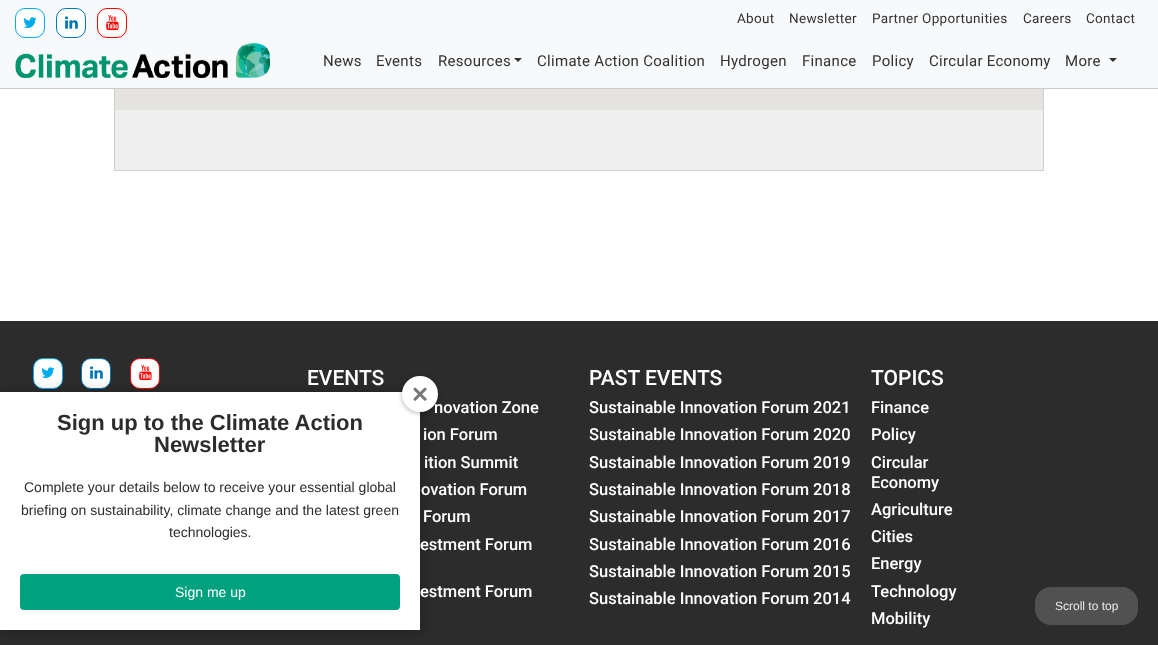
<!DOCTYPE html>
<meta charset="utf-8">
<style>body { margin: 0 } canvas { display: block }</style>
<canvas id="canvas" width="1158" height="645"></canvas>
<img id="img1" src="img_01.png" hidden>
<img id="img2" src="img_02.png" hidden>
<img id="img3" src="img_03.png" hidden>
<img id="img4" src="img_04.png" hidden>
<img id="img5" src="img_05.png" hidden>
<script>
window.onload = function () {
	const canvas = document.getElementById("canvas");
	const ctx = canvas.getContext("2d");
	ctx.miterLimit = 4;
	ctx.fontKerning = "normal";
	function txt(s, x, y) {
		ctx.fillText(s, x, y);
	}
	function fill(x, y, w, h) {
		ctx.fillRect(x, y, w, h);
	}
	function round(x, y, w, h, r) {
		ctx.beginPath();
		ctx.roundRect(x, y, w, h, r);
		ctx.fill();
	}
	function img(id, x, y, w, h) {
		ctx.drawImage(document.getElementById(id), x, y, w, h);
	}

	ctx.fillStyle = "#FFFFFF";
	fill(0, 0, 1158, 645);
	ctx.strokeStyle = "#CECECE";
	ctx.strokeRect(114.5, -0.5, 929, 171);
	ctx.fillStyle = "#E5E3DF";
	fill(115, 89, 928, 21);
	ctx.fillStyle = "#EFEFEF";
	fill(115, 110, 928, 60);
	ctx.fillStyle = "#CCCCCC";
	fill(0, 88, 1158, 1);
	ctx.fillStyle = "#F8F9FA";
	fill(0, 0, 300, 88);
	ctx.fillStyle = "#FFFFFF";
	ctx.beginPath();
	ctx.roundRect(15.5, 8.5, 29, 29, 9.5);
	ctx.fill();
	ctx.strokeStyle = "#00ACED";
	ctx.stroke();
	img("img1", 23, 17, 14, 11);
	ctx.beginPath();
	ctx.roundRect(56.5, 8.5, 29, 29, 9.5);
	ctx.fill();
	ctx.strokeStyle = "#0077B5";
	ctx.stroke();
	img("img2", 65, 16, 13, 13);
	ctx.beginPath();
	ctx.roundRect(97.5, 8.5, 29, 29, 9.5);
	ctx.fill();
	ctx.strokeStyle = "#FF0000";
	ctx.stroke();
	img("img3", 106, 15, 13, 16);
	img("img4", 15, 42, 255, 36);
	ctx.fillStyle = "#F8F9FA";
	fill(300, 0, 858, 88);
	ctx.fillStyle = "#323232";
	ctx.beginPath();
	ctx.moveTo(514, 58);
	ctx.lineTo(522, 58);
	ctx.lineTo(518, 62);
	ctx.closePath();
	ctx.fill();
	ctx.beginPath();
	ctx.moveTo(1109, 58);
	ctx.lineTo(1117, 58);
	ctx.lineTo(1113, 62);
	ctx.closePath();
	ctx.fill();
	ctx.fillStyle = "#2C2C2C";
	fill(0, 321, 1158, 324);
	ctx.fillStyle = "#FFFFFF";
	ctx.beginPath();
	ctx.roundRect(33.5, 358.5, 29, 30, 9.5);
	ctx.fill();
	ctx.strokeStyle = "#00ACED";
	ctx.stroke();
	img("img1", 41, 367, 14, 11);
	ctx.beginPath();
	ctx.roundRect(81.5, 358.5, 29, 30, 9.5);
	ctx.fill();
	ctx.strokeStyle = "#0077B5";
	ctx.stroke();
	img("img2", 90, 366, 13, 13);
	ctx.beginPath();
	ctx.roundRect(130.5, 358.5, 29, 30, 9.5);
	ctx.fill();
	ctx.strokeStyle = "#FF0000";
	ctx.stroke();
	img("img3", 139, 365, 13, 16);
	ctx.fillStyle = "rgba(0, 0, 0, 0.3)";
	ctx.filter = "blur(6.5px)";
	ctx.beginPath();
	ctx.rect(0, 393, 420, 238);
	ctx.fill();
	ctx.filter = "none";
	ctx.fillStyle = "#FFFFFF";
	fill(0, 392, 420, 238);
	ctx.fillStyle = "rgba(0, 0, 0, 0.3)";
	ctx.filter = "blur(2.5px)";
	ctx.beginPath();
	ctx.roundRect(402, 377, 36, 36, 18);
	ctx.fill();
	ctx.filter = "none";
	ctx.fillStyle = "#FFFFFF";
	ctx.beginPath();
	ctx.arc(420, 394, 18, 0, Math.PI * 2);
	ctx.fill();
	img("img5", 413, 387, 14, 14);
	ctx.fillStyle = "#00A17E";
	round(20, 574, 380, 36, 4);
	ctx.fillStyle = "#515151";
	round(1035, 587, 103, 38, 16);
	ctx.letterSpacing = "0.3px";
	ctx.font = "13.5px Roboto";
	ctx.fillStyle = "#323232";
	txt("About", 737, 23);
	txt("Newsletter", 789, 23);
	txt("Partner Opportunities", 872, 23);
	txt("Careers", 1023, 23);
	txt("Contact", 1086, 23);
	ctx.font = "15px Roboto";
	txt("News", 323, 66);
	txt("Events", 376, 66);
	txt("Resources", 438, 66);
	txt("Climate Action Coalition", 537, 66);
	txt("Hydrogen", 720, 66);
	txt("Finance", 802, 66);
	txt("Policy", 872, 66);
	txt("Circular Economy", 929, 66);
	txt("More", 1065, 66);
	ctx.letterSpacing = "0px";
	ctx.font = "bold 22px Liberation Sans";
	ctx.fillStyle = "#2C2C2C";
	txt("Sign up to the Climate Action", 57, 430);
	txt("Newsletter", 154, 452);
	ctx.font = "14px Liberation Sans";
	txt("Complete your details below to receive your essential global", 24, 492);
	txt("briefing on sustainability, climate change and the latest green", 21, 515);
	txt("technologies.", 169, 537);
	ctx.fillStyle = "#FFFFFF";
	txt("Sign me up", 175, 597);
	ctx.font = "500 21px Roboto";
	txt("EVENTS", 307, 385);
	ctx.font = "500 16.5px Roboto";
	txt("novation Zone", 434, 413);
	txt("ion Forum", 423, 440);
	txt("ition Summit", 424, 468);
	txt("ovation Forum", 421, 495);
	txt("Forum", 423, 522);
	txt("estment Forum", 420, 550);
	txt("estment Forum", 420, 597);
	ctx.font = "500 21px Roboto";
	txt("PAST EVENTS", 589, 385);
	ctx.font = "500 16.5px Roboto";
	txt("Sustainable Innovation Forum 2021", 589, 413);
	txt("Sustainable Innovation Forum 2020", 589, 440);
	txt("Sustainable Innovation Forum 2019", 589, 468);
	txt("Sustainable Innovation Forum 2018", 589, 495);
	txt("Sustainable Innovation Forum 2017", 589, 522);
	txt("Sustainable Innovation Forum 2016", 589, 550);
	txt("Sustainable Innovation Forum 2015", 589, 577);
	txt("Sustainable Innovation Forum 2014", 589, 604);
	ctx.font = "500 21px Roboto";
	txt("TOPICS", 871, 385);
	ctx.font = "500 16.5px Roboto";
	txt("Finance", 871, 413);
	txt("Policy", 871, 440);
	txt("Circular", 871, 468);
	txt("Economy", 871, 488);
	txt("Agriculture", 871, 515);
	txt("Cities", 871, 542);
	txt("Energy", 871, 569);
	txt("Technology", 871, 597);
	txt("Mobility", 871, 624);
	ctx.font = "12px Liberation Sans";
	ctx.fillStyle = "#EAEAEA";
	txt("Scroll to top", 1055, 610);
};
</script>
